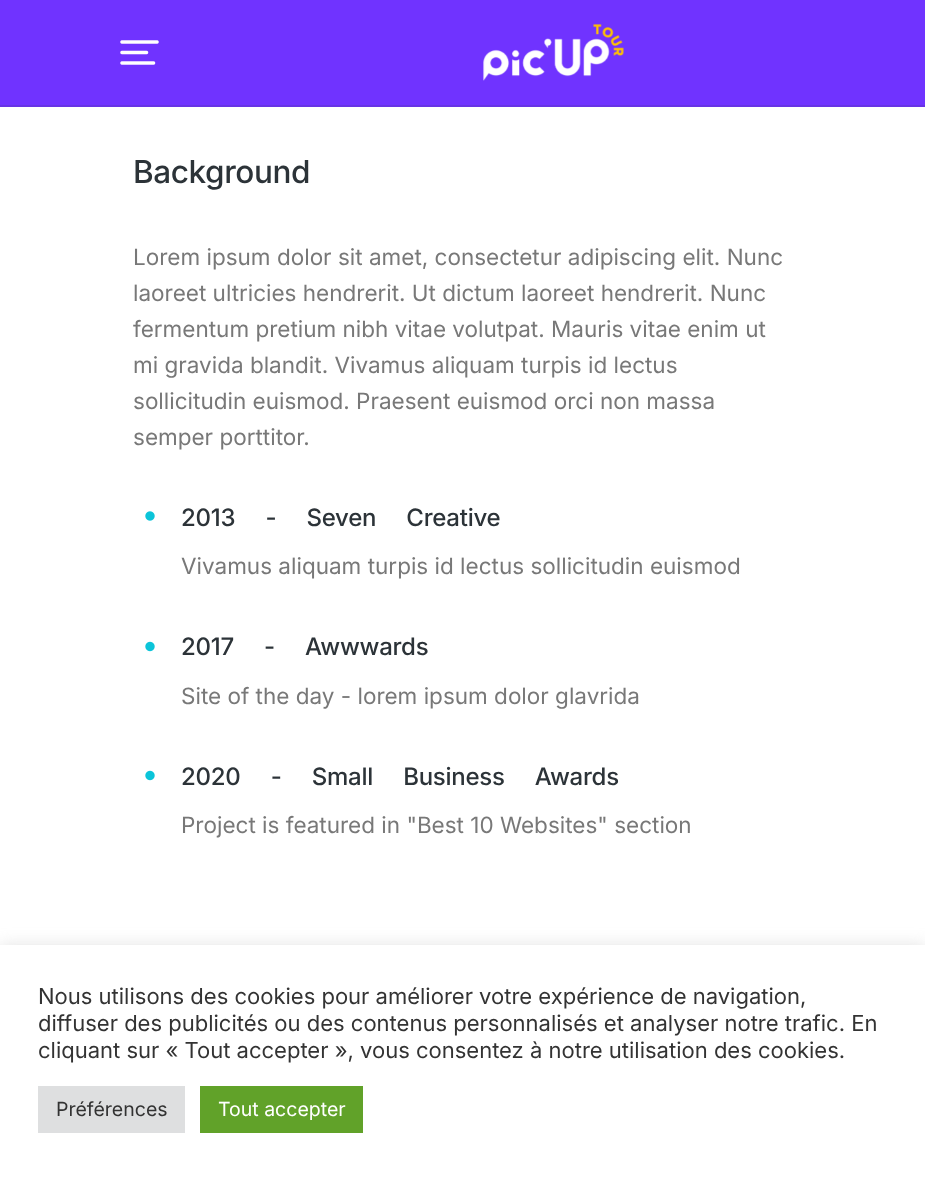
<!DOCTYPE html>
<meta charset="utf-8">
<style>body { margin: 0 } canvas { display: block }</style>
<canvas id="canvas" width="925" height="1177"></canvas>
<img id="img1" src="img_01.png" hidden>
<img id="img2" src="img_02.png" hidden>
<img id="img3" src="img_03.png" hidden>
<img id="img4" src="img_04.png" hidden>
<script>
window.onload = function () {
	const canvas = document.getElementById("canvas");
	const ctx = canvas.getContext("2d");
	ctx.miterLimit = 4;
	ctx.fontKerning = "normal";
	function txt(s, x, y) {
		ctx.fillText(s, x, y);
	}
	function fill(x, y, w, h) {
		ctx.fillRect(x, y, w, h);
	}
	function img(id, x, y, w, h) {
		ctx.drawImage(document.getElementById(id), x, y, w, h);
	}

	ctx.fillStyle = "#FFFFFF";
	fill(0, 0, 925, 1177);
	ctx.fillStyle = "#7033FF";
	fill(0, 0, 925, 105);
	ctx.fillStyle = "#6733E5";
	fill(0, 105, 925, 2);
	img("img1", 120, 40, 39, 25);
	img("img2", 483, 24, 141, 57);
	img("img3", 145, 511, 10, 10);
	img("img4", 145, 641, 10, 11);
	img("img4", 145, 770, 10, 11);
	ctx.fillStyle = "rgba(172, 171, 171, 0.3)";
	ctx.filter = "blur(7.5px)";
	ctx.beginPath();
	ctx.rect(0, 944, 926, 232);
	ctx.fill();
	ctx.filter = "none";
	ctx.fillStyle = "#FFFFFF";
	fill(0, 945, 925, 232);
	ctx.fillStyle = "#DEDFE0";
	fill(38, 1086, 147, 47);
	ctx.fillStyle = "#61A229";
	fill(200, 1086, 163, 47);
	ctx.letterSpacing = "-0.4px";
	ctx.font = "500 31.5px Inter";
	ctx.fillStyle = "#2C3338";
	txt("Background", 133, 183);
	ctx.letterSpacing = "0px";
	ctx.font = "22.5px Inter";
	ctx.fillStyle = "#787878";
	txt("Lorem ipsum dolor sit amet, consectetur adipiscing elit. Nunc", 133, 265);
	txt("laoreet ultricies hendrerit. Ut dictum laoreet hendrerit. Nunc", 133, 301);
	txt("fermentum pretium nibh vitae volutpat. Mauris vitae enim ut", 133, 337);
	txt("mi gravida blandit. Vivamus aliquam turpis id lectus", 133, 373);
	txt("sollicitudin euismod. Praesent euismod orci non massa", 133, 409);
	txt("semper porttitor.", 133, 445);
	ctx.letterSpacing = "-0.25px";
	ctx.wordSpacing = "24px";
	ctx.font = "500 24px Inter";
	ctx.fillStyle = "#2C3338";
	txt("2013 - Seven Creative", 181, 526);
	ctx.letterSpacing = "0px";
	ctx.wordSpacing = "0px";
	ctx.font = "22.5px Inter";
	ctx.fillStyle = "#787878";
	txt("Vivamus aliquam turpis id lectus sollicitudin euismod", 181, 574);
	ctx.letterSpacing = "-0.25px";
	ctx.wordSpacing = "24px";
	ctx.font = "500 24px Inter";
	ctx.fillStyle = "#2C3338";
	txt("2017 - Awwwards", 181, 655);
	ctx.letterSpacing = "0px";
	ctx.wordSpacing = "0px";
	ctx.font = "22.5px Inter";
	ctx.fillStyle = "#787878";
	txt("Site of the day - lorem ipsum dolor glavrida", 181, 704);
	ctx.letterSpacing = "-0.25px";
	ctx.wordSpacing = "24px";
	ctx.font = "500 24px Inter";
	ctx.fillStyle = "#2C3338";
	txt("2020 - Small Business Awards", 181, 785);
	ctx.letterSpacing = "0px";
	ctx.wordSpacing = "0px";
	ctx.font = "22.5px Inter";
	ctx.fillStyle = "#787878";
	txt("Project is featured in \"Best 10 Websites\" section", 181, 833);
	ctx.font = "22px Inter";
	ctx.fillStyle = "#333333";
	txt("Nous utilisons des cookies pour améliorer votre expérience de navigation,", 38, 1004);
	txt("diffuser des publicités ou des contenus personnalisés et analyser notre trafic. En", 38, 1031);
	txt("cliquant sur « Tout accepter », vous consentez à notre utilisation des cookies.", 38, 1058);
	ctx.font = "19.5px Inter";
	txt("Préférences", 56, 1116);
	ctx.fillStyle = "#FFFFFF";
	txt("Tout accepter", 218, 1116);
};
</script>
